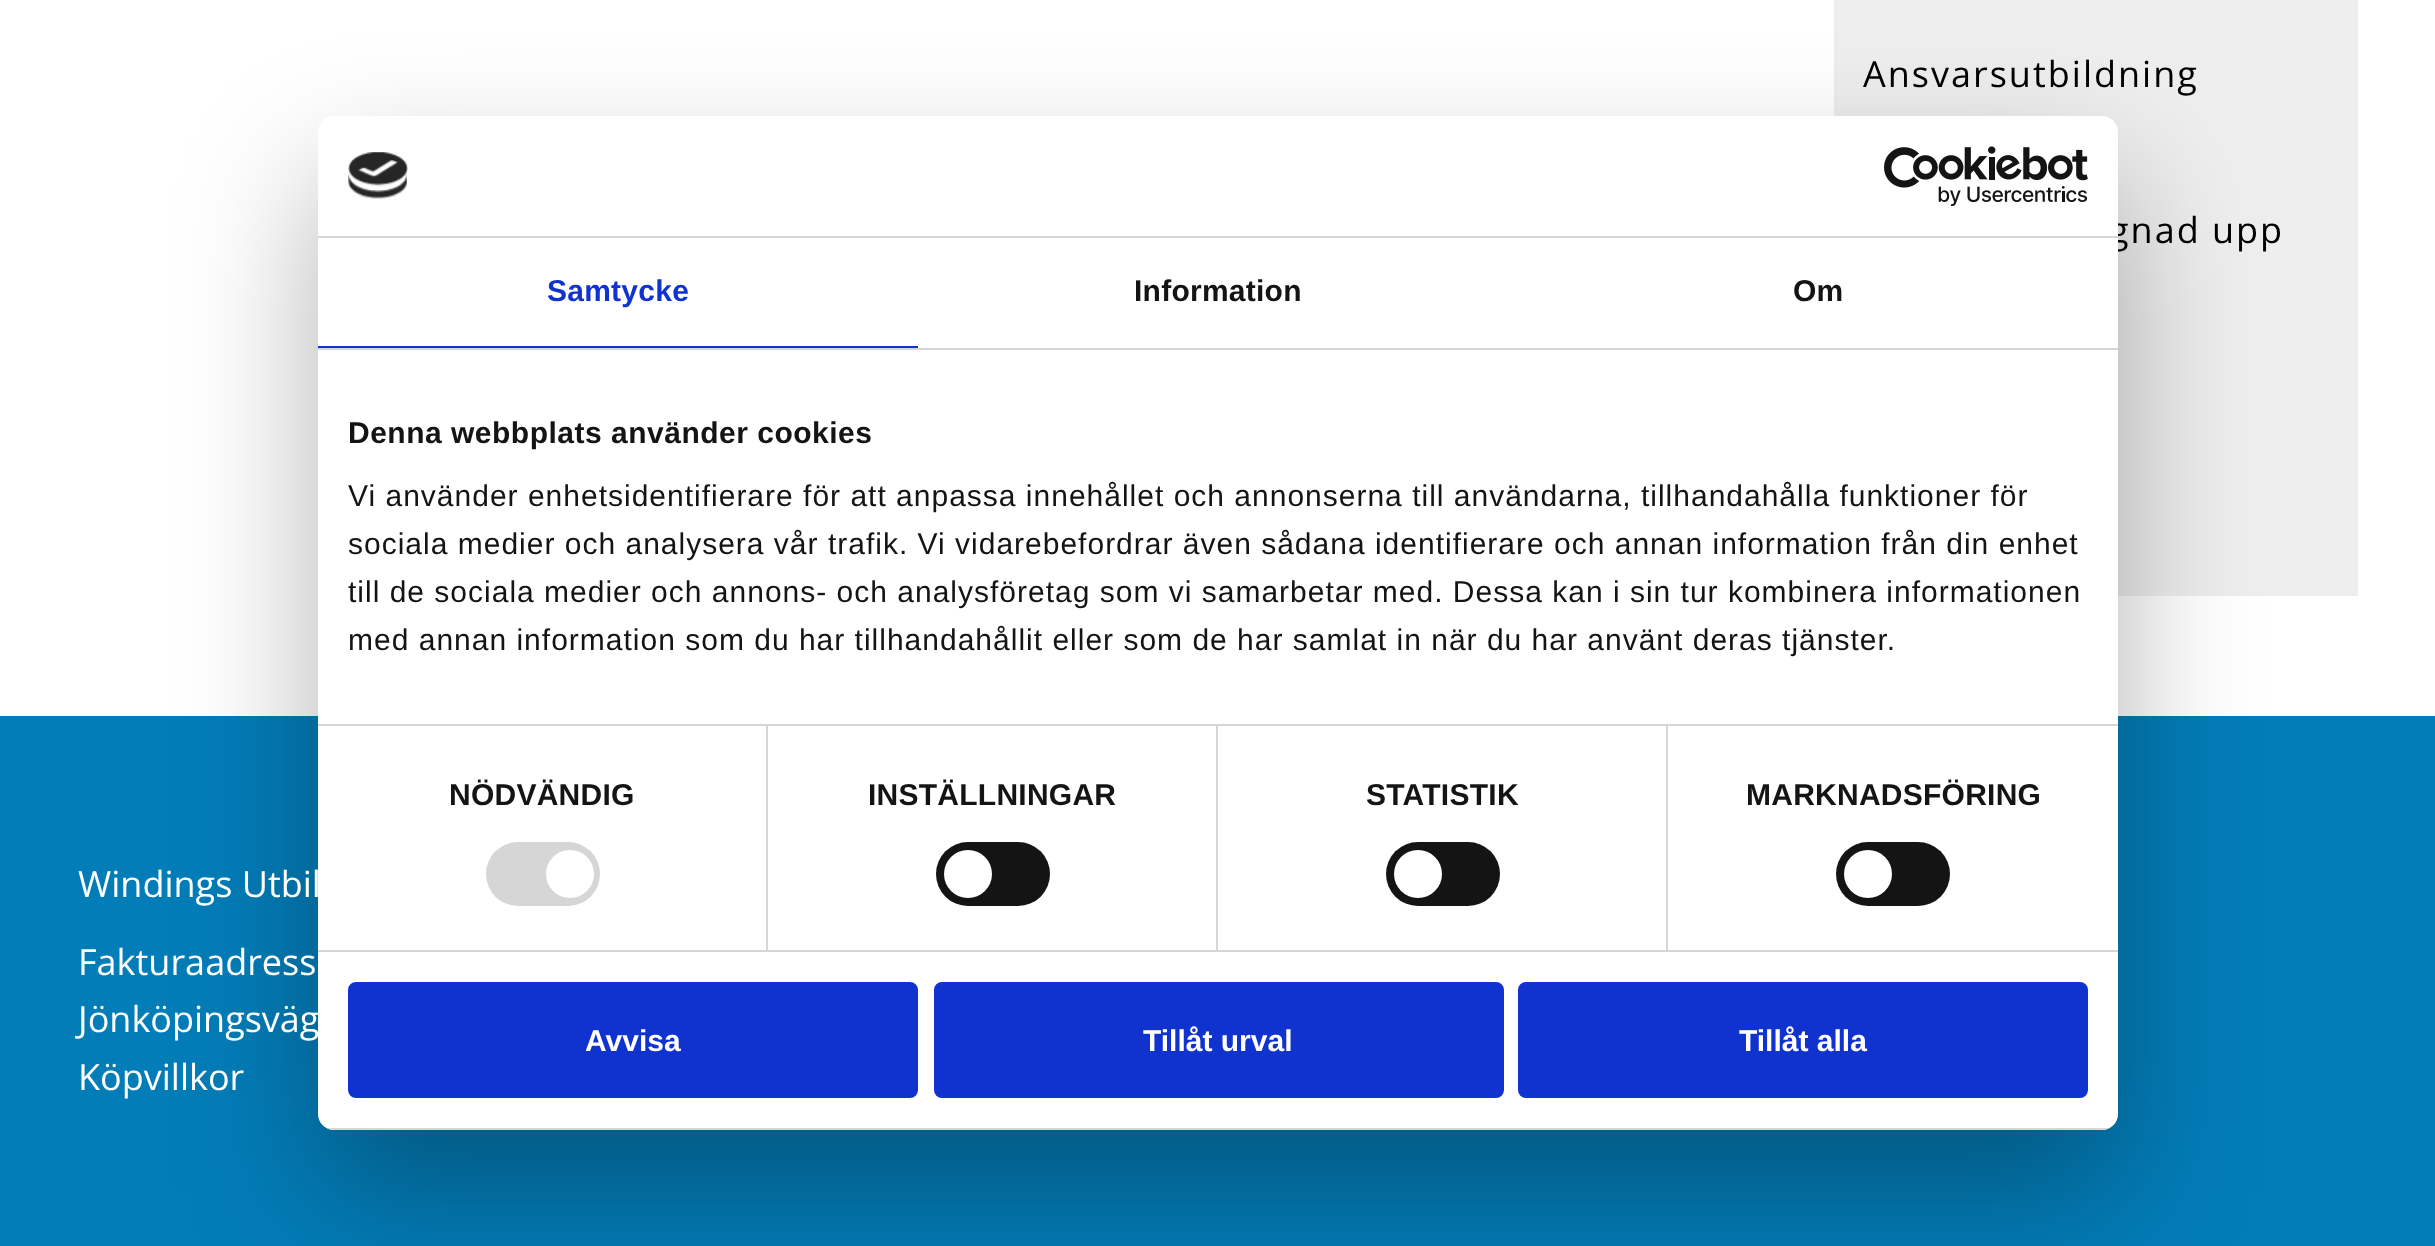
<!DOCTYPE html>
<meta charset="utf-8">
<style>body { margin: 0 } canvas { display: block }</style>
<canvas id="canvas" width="2435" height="1246"></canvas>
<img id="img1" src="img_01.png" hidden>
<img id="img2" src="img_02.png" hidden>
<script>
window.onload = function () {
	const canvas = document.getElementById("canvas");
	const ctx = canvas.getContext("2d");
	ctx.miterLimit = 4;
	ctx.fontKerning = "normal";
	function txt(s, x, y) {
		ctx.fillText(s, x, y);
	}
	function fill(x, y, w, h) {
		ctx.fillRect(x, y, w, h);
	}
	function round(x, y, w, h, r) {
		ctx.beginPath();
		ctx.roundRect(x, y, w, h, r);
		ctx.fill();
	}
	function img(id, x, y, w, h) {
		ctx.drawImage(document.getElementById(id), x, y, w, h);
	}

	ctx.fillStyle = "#FFFFFF";
	fill(0, 0, 2435, 1246);
	ctx.fillStyle = "#EEEEEE";
	fill(1834, 0, 524, 596);
	ctx.fillStyle = "#037DB8";
	fill(0, 716, 2435, 530);
	ctx.fillStyle = "rgba(0, 0, 0, 0.3)";
	ctx.filter = "blur(68px)";
	ctx.beginPath();
	ctx.roundRect(318, 180, 1800, 1014, 16);
	ctx.fill();
	ctx.filter = "none";
	ctx.letterSpacing = "2px";
	ctx.font = "36px Open Sans";
	ctx.fillStyle = "#000000";
	txt("Ansvarsutbildning", 1863, 87);
	txt("gnad upp", 2109, 243);
	ctx.letterSpacing = "0px";
	ctx.fillStyle = "#FFFFFF";
	txt("Windings Utbil", 78, 897);
	txt("Fakturaadress", 78, 975);
	txt("Jönköpingsväg", 78, 1032);
	txt("Köpvillkor", 78, 1090);
	round(318, 116, 1800, 1014, 16);
	ctx.fillStyle = "#D6D6D6";
	fill(318, 236, 1800, 2);
	img("img1", 348, 152, 60, 47);
	img("img2", 1884, 146, 204, 60);
	fill(318, 348, 1800, 2);
	ctx.fillStyle = "#1032CF";
	fill(318, 346, 600, 2);
	ctx.letterSpacing = "0.25px";
	ctx.font = "bold 30px Liberation Sans";
	txt("Samtycke", 547, 301);
	ctx.fillStyle = "#141414";
	txt("Information", 1134, 301);
	txt("Om", 1793, 301);
	ctx.fillStyle = "#D6D6D6";
	fill(318, 724, 1800, 2);
	ctx.letterSpacing = "0.5px";
	ctx.fillStyle = "#141414";
	txt("Denna webbplats använder cookies", 348, 443);
	ctx.letterSpacing = "1px";
	ctx.font = "30px Liberation Sans";
	txt("Vi använder enhetsidentifierare för att anpassa innehållet och annonserna till användarna, tillhandahålla funktioner för", 348, 506);
	txt("sociala medier och analysera vår trafik. Vi vidarebefordrar även sådana identifierare och annan information från din enhet", 348, 554);
	txt("till de sociala medier och annons- och analysföretag som vi samarbetar med. Dessa kan i sin tur kombinera informationen", 348, 602);
	txt("med annan information som du har tillhandahållit eller som de har samlat in när du har använt deras tjänster.", 348, 650);
	ctx.fillStyle = "#D6D6D6";
	fill(318, 950, 1800, 2);
	fill(766, 726, 2, 224);
	ctx.letterSpacing = "0.25px";
	ctx.font = "bold 30px Liberation Sans";
	ctx.fillStyle = "#141414";
	txt("NÖDVÄNDIG", 449, 805);
	ctx.fillStyle = "#D6D6D6";
	round(486, 842, 114, 64, 32);
	ctx.fillStyle = "#FFFFFF";
	ctx.beginPath();
	ctx.arc(570, 874, 24, 0, Math.PI * 2);
	ctx.fill();
	ctx.fillStyle = "#D6D6D6";
	fill(1216, 726, 2, 224);
	ctx.fillStyle = "#141414";
	txt("INSTÄLLNINGAR", 868, 805);
	round(936, 842, 114, 64, 32);
	ctx.fillStyle = "#FFFFFF";
	ctx.beginPath();
	ctx.arc(968, 874, 24, 0, Math.PI * 2);
	ctx.fill();
	ctx.fillStyle = "#D6D6D6";
	fill(1666, 726, 2, 224);
	ctx.fillStyle = "#141414";
	txt("STATISTIK", 1366, 805);
	round(1386, 842, 114, 64, 32);
	ctx.fillStyle = "#FFFFFF";
	ctx.beginPath();
	ctx.arc(1418, 874, 24, 0, Math.PI * 2);
	ctx.fill();
	ctx.fillStyle = "#141414";
	txt("MARKNADSFÖRING", 1746, 805);
	round(1836, 842, 114, 64, 32);
	ctx.fillStyle = "#FFFFFF";
	ctx.beginPath();
	ctx.arc(1868, 874, 24, 0, Math.PI * 2);
	ctx.fill();
	ctx.save();
	ctx.beginPath();
	ctx.roundRect(318, 116, 1800, 1014, 16);
	ctx.clip();
	ctx.fillStyle = "#D6D6D6";
	fill(318, 1128, 1800, 2);
	ctx.restore();
	ctx.fillStyle = "#1032CF";
	ctx.beginPath();
	ctx.roundRect(350, 984, 566, 112, 6);
	ctx.fill();
	ctx.strokeStyle = "#1032CF";
	ctx.lineWidth = 4;
	ctx.stroke();
	ctx.letterSpacing = "0px";
	ctx.fillStyle = "#FFFFFF";
	txt("Avvisa", 585, 1051);
	ctx.fillStyle = "#1032CF";
	ctx.beginPath();
	ctx.roundRect(936, 984, 566, 112, 6);
	ctx.fill();
	ctx.stroke();
	ctx.fillStyle = "#FFFFFF";
	txt("Tillåt urval", 1143, 1051);
	ctx.fillStyle = "#1032CF";
	ctx.beginPath();
	ctx.roundRect(1520, 984, 566, 112, 6);
	ctx.fill();
	ctx.stroke();
	ctx.fillStyle = "#FFFFFF";
	txt("Tillåt alla", 1739, 1051);
};
</script>
